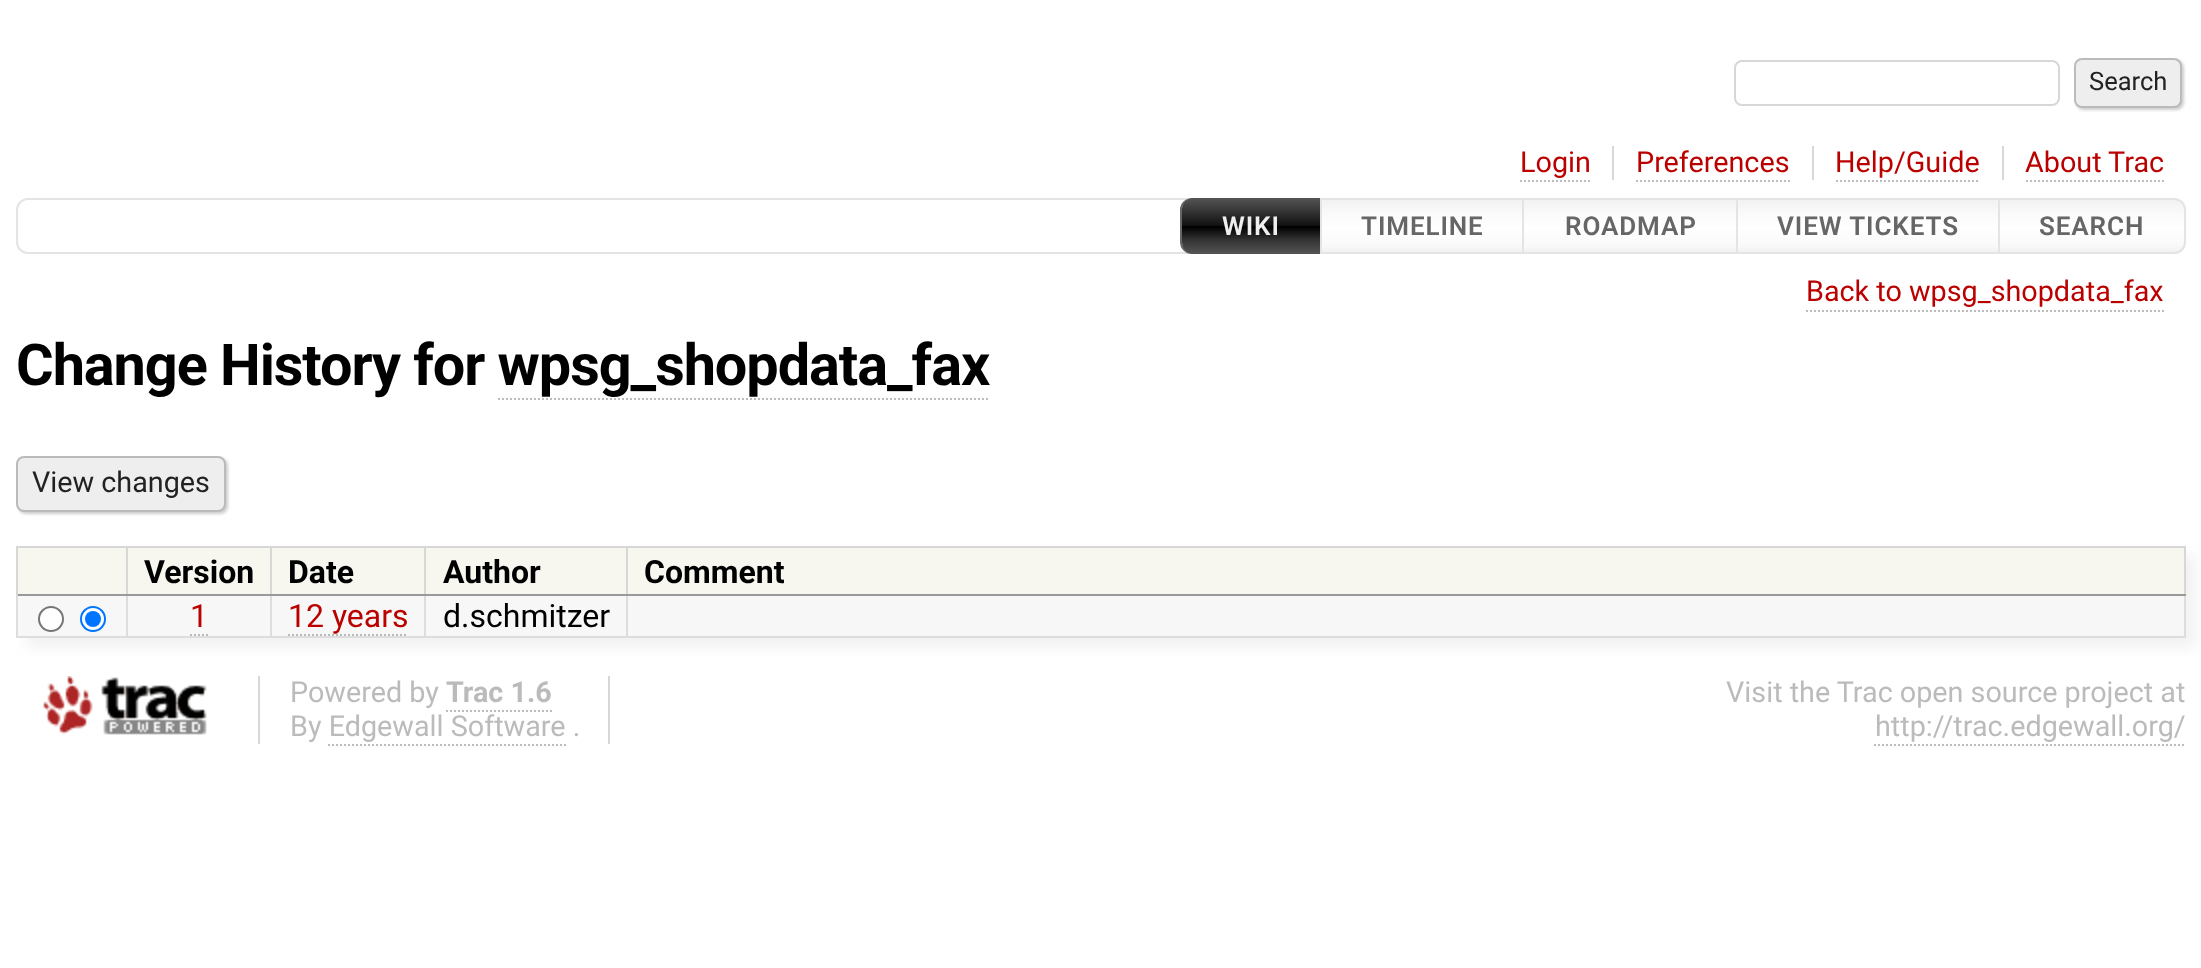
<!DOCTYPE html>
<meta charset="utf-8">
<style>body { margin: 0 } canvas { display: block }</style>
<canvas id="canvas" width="2201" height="968"></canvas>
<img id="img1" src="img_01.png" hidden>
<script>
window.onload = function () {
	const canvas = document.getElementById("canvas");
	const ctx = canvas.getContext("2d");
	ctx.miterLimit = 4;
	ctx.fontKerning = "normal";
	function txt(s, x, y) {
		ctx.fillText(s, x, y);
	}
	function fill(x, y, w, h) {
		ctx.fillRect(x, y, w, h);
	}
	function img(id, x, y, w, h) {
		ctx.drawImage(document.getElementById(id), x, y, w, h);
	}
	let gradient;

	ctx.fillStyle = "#FFFFFF";
	fill(0, 0, 2201, 968);
	ctx.beginPath();
	ctx.roundRect(1735, 61, 324, 44, 7);
	ctx.strokeStyle = "#D7D7D7";
	ctx.lineWidth = 2;
	ctx.stroke();
	ctx.fillStyle = "#CCCCCC";
	ctx.filter = "blur(1.5px)";
	ctx.beginPath();
	ctx.roundRect(2076, 60, 108, 50, 8);
	ctx.fill();
	ctx.filter = "none";
	ctx.fillStyle = "#EEEEEE";
	ctx.beginPath();
	ctx.roundRect(2075, 59, 106, 48, 7);
	ctx.fill();
	ctx.strokeStyle = "#BBBBBB";
	ctx.stroke();
	ctx.fillStyle = "#D7D7D7";
	fill(1612, 146, 2, 34);
	ctx.beginPath();
	ctx.moveTo(1520, 181);
	ctx.lineTo(1592, 181);
	ctx.setLineDash([2, 2]);
	ctx.stroke();
	fill(1812, 146, 2, 34);
	ctx.beginPath();
	ctx.moveTo(1636, 181);
	ctx.lineTo(1790, 181);
	ctx.stroke();
	fill(2002, 146, 2, 34);
	ctx.beginPath();
	ctx.moveTo(1836, 181);
	ctx.lineTo(1980, 181);
	ctx.stroke();
	ctx.beginPath();
	ctx.moveTo(2026, 181);
	ctx.lineTo(2164, 181);
	ctx.stroke();
	ctx.beginPath();
	ctx.roundRect(17, 199, 2168, 54, 11);
	ctx.strokeStyle = "#E4E4E4";
	ctx.setLineDash([]);
	ctx.stroke();
	ctx.beginPath();
	ctx.roundRect(1181, 199, 140, 54, [11, 0, 0, 11]);
	ctx.strokeStyle = "#666666";
	ctx.stroke();
	gradient = ctx.createLinearGradient(1251, 198, 1251, 254);
	gradient.addColorStop(0, "#555555");
	gradient.addColorStop(0.25, "#333333");
	gradient.addColorStop(0.49, "#111111");
	gradient.addColorStop(0.51, "#000000");
	gradient.addColorStop(0.75, "#333333");
	gradient.addColorStop(1, "#555555");
	ctx.fillStyle = gradient;
	ctx.beginPath();
	ctx.roundRect(1182, 198, 138, 56, [12, 0, 0, 12]);
	ctx.fill();
	gradient = ctx.createLinearGradient(1423, 200, 1423, 252);
	gradient.addColorStop(0, "#F2F2F2");
	gradient.addColorStop(0.25, "#FAFAFA");
	gradient.addColorStop(0.49, "#FEFEFE");
	gradient.addColorStop(0.51, "#FFFFFF");
	gradient.addColorStop(0.85, "#FAFAFA");
	gradient.addColorStop(1, "#F2F2F2");
	ctx.fillStyle = gradient;
	fill(1322, 200, 200, 52);
	ctx.strokeStyle = "#E4E4E4";
	ctx.strokeRect(1321, 199, 204, 54);
	gradient = ctx.createLinearGradient(1630, 200, 1630, 252);
	gradient.addColorStop(0, "#F2F2F2");
	gradient.addColorStop(0.25, "#FAFAFA");
	gradient.addColorStop(0.49, "#FEFEFE");
	gradient.addColorStop(0.51, "#FFFFFF");
	gradient.addColorStop(0.85, "#FAFAFA");
	gradient.addColorStop(1, "#F2F2F2");
	ctx.fillStyle = gradient;
	fill(1524, 200, 212, 52);
	ctx.strokeRect(1523, 199, 214, 54);
	gradient = ctx.createLinearGradient(1868, 200, 1868, 252);
	gradient.addColorStop(0, "#F2F2F2");
	gradient.addColorStop(0.25, "#FAFAFA");
	gradient.addColorStop(0.49, "#FEFEFE");
	gradient.addColorStop(0.51, "#FFFFFF");
	gradient.addColorStop(0.85, "#FAFAFA");
	gradient.addColorStop(1, "#F2F2F2");
	ctx.fillStyle = gradient;
	fill(1738, 200, 260, 52);
	ctx.strokeRect(1737, 199, 262, 54);
	ctx.save();
	ctx.beginPath();
	ctx.roundRect(1998, 198, 188, 56, [0, 12, 12, 0]);
	ctx.clip();
	gradient = ctx.createLinearGradient(2092, 200, 2092, 252);
	gradient.addColorStop(0, "#F2F2F2");
	gradient.addColorStop(0.25, "#FAFAFA");
	gradient.addColorStop(0.49, "#FEFEFE");
	gradient.addColorStop(0.51, "#FFFFFF");
	gradient.addColorStop(0.85, "#FAFAFA");
	gradient.addColorStop(1, "#F2F2F2");
	ctx.fillStyle = gradient;
	fill(2000, 200, 186, 52);
	ctx.restore();
	ctx.beginPath();
	ctx.roundRect(1999, 199, 186, 54, [0, 11, 11, 0]);
	ctx.stroke();
	ctx.beginPath();
	ctx.moveTo(1806, 311);
	ctx.lineTo(2164, 311);
	ctx.strokeStyle = "#BBBBBB";
	ctx.setLineDash([2, 2]);
	ctx.stroke();
	ctx.beginPath();
	ctx.moveTo(498, 399);
	ctx.lineTo(990, 399);
	ctx.stroke();
	ctx.fillStyle = "#CCCCCC";
	ctx.filter = "blur(1.5px)";
	ctx.beginPath();
	ctx.roundRect(18, 458, 210, 56, 8);
	ctx.fill();
	ctx.filter = "none";
	ctx.fillStyle = "#EEEEEE";
	ctx.beginPath();
	ctx.roundRect(17, 457, 208, 54, 7);
	ctx.fill();
	ctx.setLineDash([]);
	ctx.stroke();
	ctx.fillStyle = "#F2F2F2";
	ctx.filter = "blur(6.5px)";
	ctx.beginPath();
	ctx.rect(26, 556, 2170, 92);
	ctx.fill();
	ctx.filter = "none";
	ctx.fillStyle = "#F7F7F0";
	fill(18, 548, 2166, 46);
	ctx.fillStyle = "#D7D7D7";
	fill(626, 546, 1560, 2);
	ctx.fillStyle = "#DDDDDD";
	fill(2184, 594, 2, 44);
	ctx.fillStyle = "#D7D7D7";
	fill(2184, 546, 2, 50);
	ctx.fillStyle = "#F7F7F7";
	fill(18, 596, 2166, 40);
	ctx.fillStyle = "#DDDDDD";
	fill(626, 636, 1560, 2);
	fill(626, 594, 2, 44);
	ctx.fillStyle = "#999999";
	fill(626, 594, 1560, 2);
	ctx.fillStyle = "#D7D7D7";
	fill(626, 546, 2, 50);
	fill(424, 546, 204, 2);
	ctx.fillStyle = "#DDDDDD";
	fill(424, 636, 204, 2);
	fill(424, 594, 2, 44);
	ctx.fillStyle = "#999999";
	fill(424, 594, 204, 2);
	ctx.fillStyle = "#D7D7D7";
	fill(424, 546, 2, 50);
	fill(270, 546, 156, 2);
	ctx.fillStyle = "#DDDDDD";
	fill(270, 636, 156, 2);
	fill(270, 594, 2, 44);
	ctx.fillStyle = "#999999";
	fill(270, 594, 156, 2);
	ctx.fillStyle = "#D7D7D7";
	fill(270, 546, 2, 50);
	fill(126, 546, 146, 2);
	ctx.fillStyle = "#DDDDDD";
	fill(126, 636, 146, 2);
	fill(126, 594, 2, 44);
	ctx.fillStyle = "#999999";
	fill(126, 594, 146, 2);
	ctx.fillStyle = "#D7D7D7";
	fill(126, 546, 2, 50);
	fill(16, 546, 112, 2);
	ctx.fillStyle = "#DDDDDD";
	fill(16, 636, 112, 2);
	fill(16, 594, 2, 44);
	ctx.fillStyle = "#999999";
	fill(16, 594, 112, 2);
	ctx.fillStyle = "#D7D7D7";
	fill(16, 546, 2, 50);
	ctx.fillStyle = "#FFFFFF";
	ctx.beginPath();
	ctx.arc(51, 619, 12, 0, Math.PI * 2);
	ctx.fill();
	ctx.strokeStyle = "#767676";
	ctx.stroke();
	ctx.beginPath();
	ctx.arc(93, 619, 12, 0, Math.PI * 2);
	ctx.fill();
	ctx.strokeStyle = "#0075FF";
	ctx.stroke();
	ctx.fillStyle = "#0075FF";
	ctx.beginPath();
	ctx.arc(93, 619, 8, 0, Math.PI * 2);
	ctx.fill();
	ctx.beginPath();
	ctx.moveTo(190, 635);
	ctx.lineTo(208, 635);
	ctx.strokeStyle = "#BBBBBB";
	ctx.setLineDash([2, 2]);
	ctx.stroke();
	ctx.beginPath();
	ctx.moveTo(288, 635);
	ctx.lineTo(408, 635);
	ctx.stroke();
	img("img1", 43, 676, 164, 59);
	ctx.fillStyle = "#D7D7D7";
	fill(608, 676, 2, 68);
	fill(258, 676, 2, 68);
	ctx.beginPath();
	ctx.moveTo(446, 711);
	ctx.lineTo(552, 711);
	ctx.stroke();
	ctx.beginPath();
	ctx.moveTo(328, 745);
	ctx.lineTo(566, 745);
	ctx.stroke();
	ctx.beginPath();
	ctx.moveTo(1874, 745);
	ctx.lineTo(2186, 745);
	ctx.stroke();
	ctx.font = "25.5px Roboto";
	ctx.fillStyle = "#222222";
	txt("Search", 2089, 90);
	ctx.font = "28.75px Roboto";
	ctx.fillStyle = "#BB0000";
	txt("Login", 1520, 172);
	txt("Preferences", 1636, 172);
	txt("Help/Guide", 1835, 172);
	txt("About Trac", 2025, 172);
	ctx.letterSpacing = "0.9px";
	ctx.font = "600 26px Roboto";
	ctx.fillStyle = "#EEEEEE";
	txt("WIKI", 1222, 235);
	ctx.fillStyle = "#666666";
	txt("TIMELINE", 1361, 235);
	txt("ROADMAP", 1565, 235);
	txt("VIEW TICKETS", 1777, 235);
	txt("SEARCH", 2039, 235);
	ctx.letterSpacing = "0px";
	ctx.font = "28.75px Roboto";
	ctx.fillStyle = "#BB0000";
	txt("Back to wpsg_shopdata_fax", 1806, 301);
	ctx.letterSpacing = "-1.05px";
	ctx.font = "bold 57.6px Roboto";
	ctx.fillStyle = "#000000";
	txt("Change History for wpsg_shopdata_fax", 16, 385);
	ctx.letterSpacing = "0px";
	ctx.font = "28.75px Roboto";
	ctx.fillStyle = "#222222";
	txt("View changes", 32, 492);
	ctx.font = "bold 32px Roboto";
	ctx.fillStyle = "#000000";
	txt("Version", 144, 583);
	txt("Date", 288, 583);
	txt("Author", 443, 583);
	txt("Comment", 644, 583);
	ctx.font = "32px Roboto";
	ctx.fillStyle = "#BB0000";
	txt("1", 190, 627);
	txt("12 years", 288, 627);
	ctx.fillStyle = "#000000";
	txt("d.schmitzer", 443, 627);
	ctx.font = "28.75px Roboto";
	ctx.fillStyle = "#BBBBBB";
	txt("Powered by", 290, 702);
	ctx.font = "bold 28.75px Roboto";
	txt("Trac 1.6", 446, 702);
	ctx.font = "28.75px Roboto";
	txt("By Edgewall Software .", 290, 736);
	txt("Visit the Trac open source project at", 1726, 702);
	txt("http://trac.edgewall.org/", 1875, 736);
};
</script>
